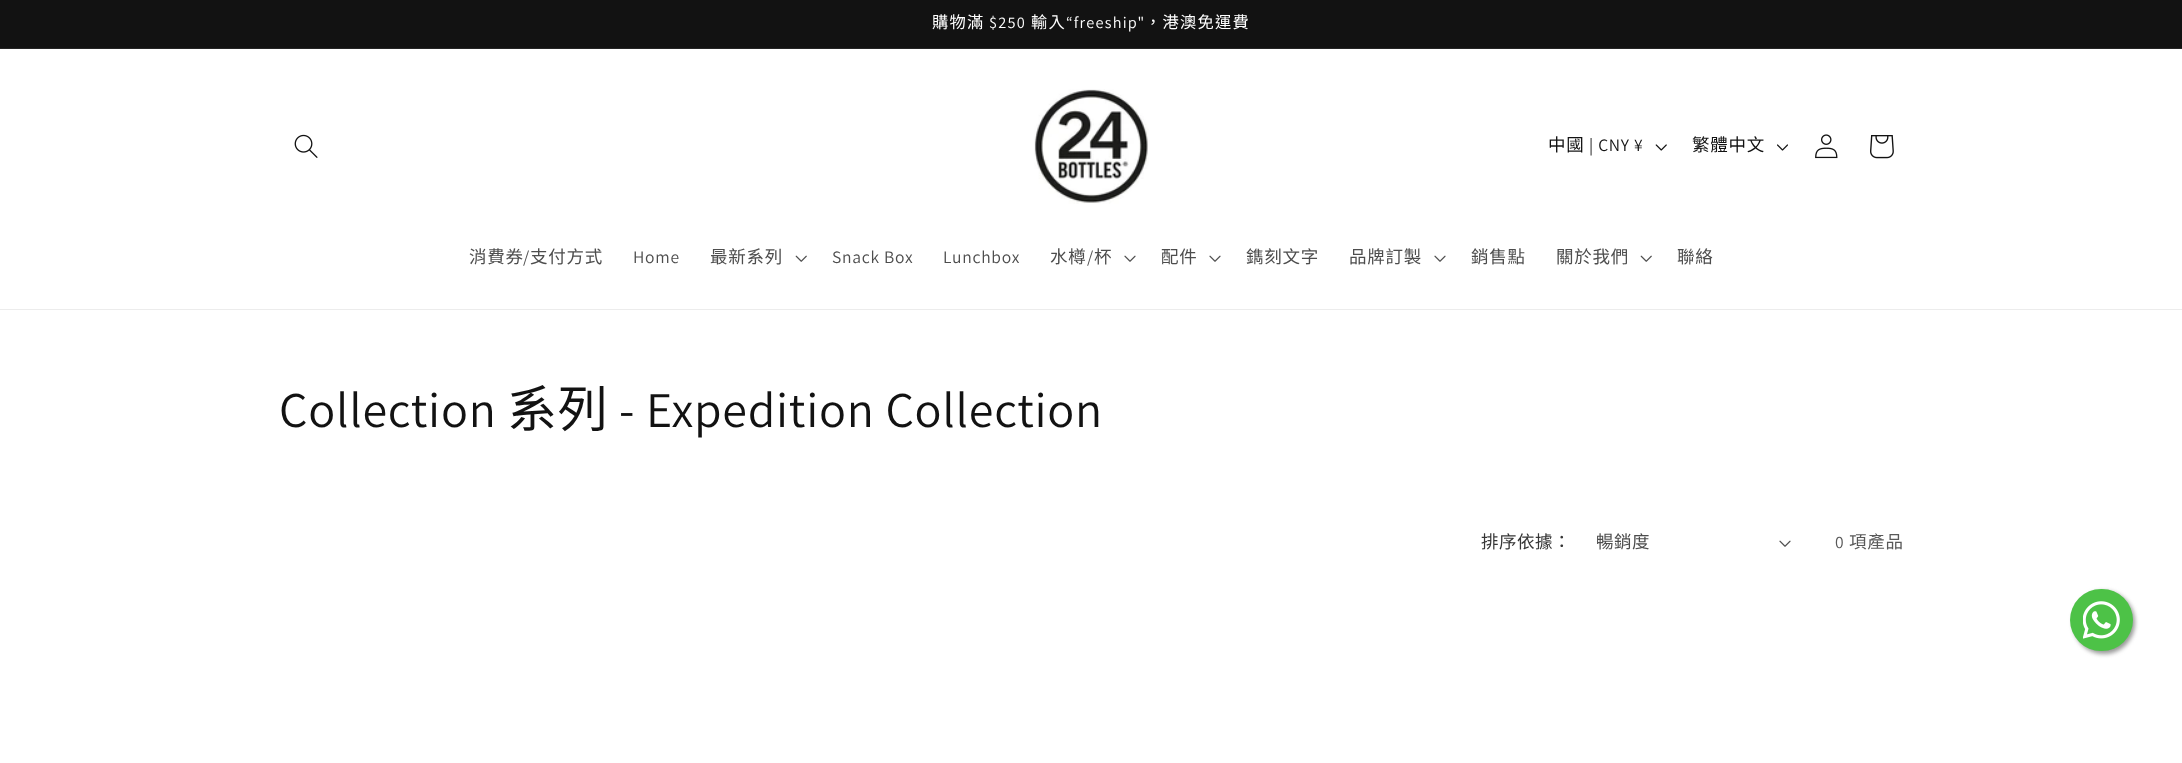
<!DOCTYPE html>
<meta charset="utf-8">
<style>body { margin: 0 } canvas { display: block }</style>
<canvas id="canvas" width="2182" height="763"></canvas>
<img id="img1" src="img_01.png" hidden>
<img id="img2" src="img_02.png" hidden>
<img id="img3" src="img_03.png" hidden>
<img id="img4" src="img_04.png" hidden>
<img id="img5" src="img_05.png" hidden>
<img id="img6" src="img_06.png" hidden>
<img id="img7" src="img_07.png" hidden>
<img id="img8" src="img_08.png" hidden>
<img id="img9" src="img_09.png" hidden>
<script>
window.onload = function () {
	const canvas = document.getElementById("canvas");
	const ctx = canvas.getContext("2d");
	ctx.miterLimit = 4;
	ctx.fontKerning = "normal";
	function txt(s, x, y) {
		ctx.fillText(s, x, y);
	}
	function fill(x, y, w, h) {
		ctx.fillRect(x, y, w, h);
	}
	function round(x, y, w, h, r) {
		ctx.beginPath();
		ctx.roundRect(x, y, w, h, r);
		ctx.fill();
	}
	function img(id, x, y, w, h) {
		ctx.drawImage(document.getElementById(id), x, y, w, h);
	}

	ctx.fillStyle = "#FFFFFF";
	fill(0, 0, 2182, 763);
	ctx.fillStyle = "#121212";
	fill(0, 0, 2182, 48);
	ctx.fillStyle = "#252525";
	fill(0, 48, 2182, 1);
	ctx.fillStyle = "#ECECEC";
	fill(0, 309, 2182, 1);
	img("img1", 294, 134, 24, 24);
	img("img2", 1034, 89, 115, 115);
	img("img3", 1655, 144, 12, 7);
	img("img4", 1777, 144, 11, 7);
	img("img5", 1815, 134, 23, 25);
	img("img6", 1870, 135, 24, 24);
	img("img7", 795, 255, 12, 7);
	img("img8", 1124, 255, 12, 7);
	img("img8", 1209, 255, 12, 7);
	img("img8", 1434, 255, 12, 7);
	img("img7", 1640, 255, 12, 7);
	img("img8", 1779, 540, 12, 7);
	ctx.fillStyle = "#999999";
	ctx.filter = "blur(2px)";
	ctx.beginPath();
	ctx.roundRect(2073, 591, 62, 63, 31);
	ctx.fill();
	ctx.filter = "none";
	ctx.fillStyle = "#4DC247";
	round(2070, 589, 63, 62, 31);
	img("img9", 2083, 601, 37, 38);
	ctx.letterSpacing = "1.25px";
	ctx.font = "16.25px Noto Sans CJK TC";
	ctx.fillStyle = "#FFFFFF";
	txt("購物滿", 932, 28);
	ctx.font = "16.25px Assistant";
	txt("$250", 989, 28);
	ctx.font = "16.25px Noto Sans CJK TC";
	txt("輸入", 1031, 28);
	ctx.font = "16.25px Assistant";
	txt("“freeship\"", 1066, 28);
	ctx.font = "16.25px Noto Sans CJK TC";
	txt("，港澳免運費", 1145, 28);
	ctx.letterSpacing = "0.75px";
	ctx.font = "17.5px Noto Sans CJK TC";
	ctx.fillStyle = "#121212";
	txt("中國", 1548, 151);
	ctx.font = "17.5px Assistant";
	txt("| CNY ¥", 1589, 151);
	ctx.font = "17.5px Noto Sans CJK TC";
	txt("繁體中文", 1692, 151);
	ctx.fillStyle = "#4D4D4D";
	txt("消費券", 469, 263);
	ctx.font = "17.5px Assistant";
	txt("/", 523, 263);
	ctx.font = "17.5px Noto Sans CJK TC";
	txt("支付方式", 530, 263);
	ctx.font = "17.5px Assistant";
	txt("Home", 633, 263);
	ctx.font = "17.5px Noto Sans CJK TC";
	txt("最新系列", 710, 263);
	ctx.font = "17.5px Assistant";
	txt("Snack Box", 832, 263);
	txt("Lunchbox", 943, 263);
	ctx.font = "17.5px Noto Sans CJK TC";
	txt("水樽", 1050, 263);
	ctx.font = "17.5px Assistant";
	txt("/", 1087, 263);
	ctx.font = "17.5px Noto Sans CJK TC";
	txt("杯", 1094, 263);
	txt("配件", 1161, 263);
	txt("鐫刻文字", 1246, 263);
	txt("品牌訂製", 1349, 263);
	txt("銷售點", 1471, 263);
	txt("關於我們", 1556, 263);
	txt("聯絡", 1677, 263);
	ctx.font = "50px Assistant";
	ctx.fillStyle = "#121212";
	txt("Collection", 279, 427);
	ctx.font = "50px Noto Sans CJK TC";
	txt("系列", 507, 427);
	ctx.font = "50px Assistant";
	txt("- Expedition Collection", 619, 427);
	ctx.letterSpacing = "0.5px";
	ctx.font = "17.5px Noto Sans CJK TC";
	ctx.fillStyle = "#363636";
	txt("排序依據：", 1481, 548);
	ctx.fillStyle = "#4D4D4D";
	txt("暢銷度", 1596, 548);
	ctx.letterSpacing = "0.75px";
	ctx.font = "17.5px Assistant";
	ctx.fillStyle = "#595959";
	txt("0", 1835, 548);
	ctx.font = "17.5px Noto Sans CJK TC";
	txt("項產品", 1849, 548);
};
</script>
